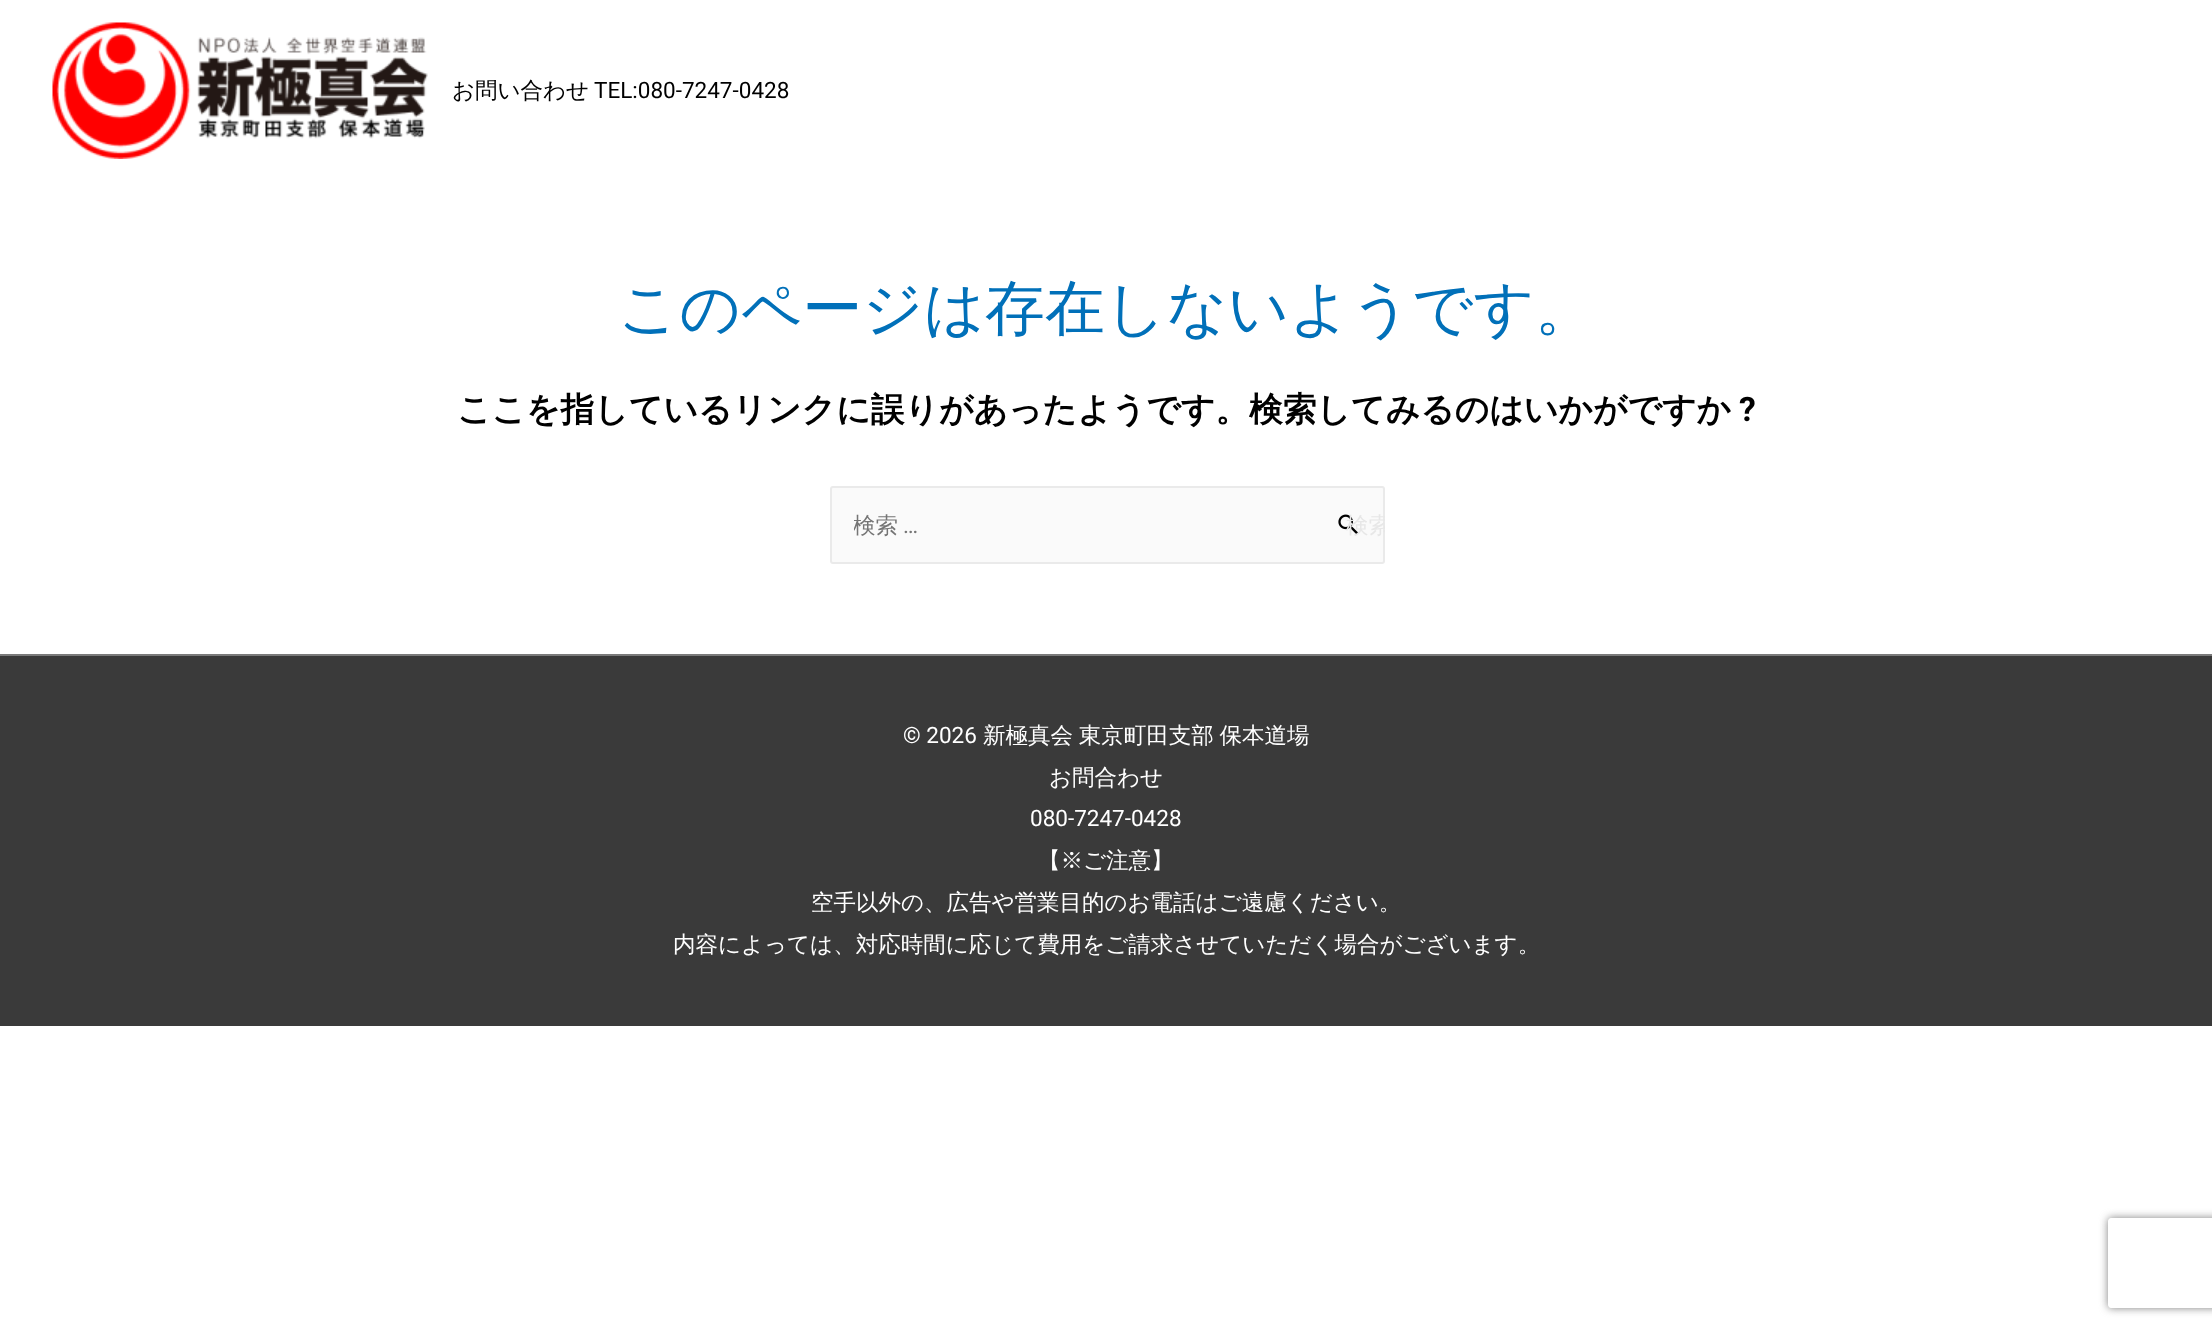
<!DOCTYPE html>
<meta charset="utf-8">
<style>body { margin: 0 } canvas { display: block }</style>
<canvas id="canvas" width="2212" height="1329"></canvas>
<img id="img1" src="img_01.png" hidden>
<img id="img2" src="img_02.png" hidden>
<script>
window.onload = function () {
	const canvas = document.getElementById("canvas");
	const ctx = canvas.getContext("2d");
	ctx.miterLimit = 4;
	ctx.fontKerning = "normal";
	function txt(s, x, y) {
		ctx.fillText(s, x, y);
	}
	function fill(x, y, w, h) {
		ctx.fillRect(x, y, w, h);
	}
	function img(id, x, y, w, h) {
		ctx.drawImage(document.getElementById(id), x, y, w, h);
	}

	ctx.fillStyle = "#FFFFFF";
	fill(0, 0, 2212, 1329);
	img("img1", 52, 22, 376, 137);
	ctx.fillStyle = "#FAFAFA";
	ctx.beginPath();
	ctx.roundRect(831, 487, 553, 76, 2);
	ctx.fill();
	ctx.strokeStyle = "#EAEAEA";
	ctx.lineWidth = 2;
	ctx.stroke();
	img("img2", 1338, 514, 20, 21);
	ctx.fillStyle = "#7A7A7A";
	fill(0, 654, 2212, 2);
	ctx.fillStyle = "#3A3A3A";
	fill(0, 656, 2212, 370);
	ctx.save();
	ctx.beginPath();
	ctx.moveTo(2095, 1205);
	ctx.lineTo(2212, 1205);
	ctx.lineTo(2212, 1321);
	ctx.lineTo(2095, 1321);
	ctx.closePath();
	ctx.moveTo(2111, 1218);
	ctx.lineTo(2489, 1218);
	ctx.bezierCurveTo(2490.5, 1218, 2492, 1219.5, 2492, 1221);
	ctx.lineTo(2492, 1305);
	ctx.bezierCurveTo(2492, 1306.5, 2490.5, 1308, 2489, 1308);
	ctx.lineTo(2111, 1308);
	ctx.bezierCurveTo(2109.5, 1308, 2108, 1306.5, 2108, 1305);
	ctx.lineTo(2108, 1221);
	ctx.bezierCurveTo(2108, 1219.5, 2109.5, 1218, 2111, 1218);
	ctx.closePath();
	ctx.clip("evenodd");
	ctx.fillStyle = "#808080";
	ctx.filter = "blur(4px)";
	ctx.beginPath();
	ctx.roundRect(2108, 1218, 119, 90, 3);
	ctx.fill();
	ctx.filter = "none";
	ctx.restore();
	ctx.font = "500 22.5px WenQuanYi Zen Hei";
	ctx.fillStyle = "#000000";
	txt("お問い合わせ", 452, 98);
	ctx.font = "22.5px Roboto";
	txt("TEL:080-7247-0428", 594, 98);
	ctx.font = "500 60px WenQuanYi Zen Hei";
	ctx.fillStyle = "#0170B9";
	txt("このページは存在しないようです。", 618, 329);
	ctx.font = "bold 33.75px WenQuanYi Zen Hei";
	ctx.fillStyle = "#000000";
	txt("ここを指しているリンクに誤りがあったようです。検索してみるのはいかがですか", 457, 421);
	ctx.font = "bold 33.75px Roboto";
	txt("?", 1739, 421);
	ctx.save();
	ctx.beginPath();
	ctx.rect(854, 512, 456, 28);
	ctx.clip();
	ctx.font = "500 22.5px WenQuanYi Zen Hei";
	ctx.fillStyle = "#757575";
	txt("検索", 853, 533);
	ctx.restore();
	ctx.font = "22.5px Roboto";
	ctx.fillStyle = "#757575";
	txt("…", 903, 533);
	ctx.save();
	ctx.beginPath();
	ctx.roundRect(1317, 486, 68, 81, 3);
	ctx.clip();
	ctx.font = "500 22.5px WenQuanYi Zen Hei";
	ctx.fillStyle = "#E7E7E7";
	txt("検索", 1346, 533);
	ctx.restore();
	ctx.fillStyle = "#FFFFFF";
	txt("© 2026", 903, 743);
	ctx.wordSpacing = "-1px";
	ctx.font = "500 22.5px WenQuanYi Zen Hei";
	txt("新極真会 東京町田支部 保本道場", 983, 743);
	ctx.wordSpacing = "0px";
	txt("お問合わせ", 1049, 785);
	ctx.font = "22.5px Roboto";
	txt("080-7247-0428", 1030, 826);
	ctx.font = "500 22.5px WenQuanYi Zen Hei";
	txt("【※ご注意】", 1038, 868);
	txt("空手以外の、広告や営業目的のお電話はご遠慮ください。", 811, 910);
	txt("内容によっては、対応時間に応じて費用をご請求させていただく場合がございます。", 673, 952);
};
</script>
